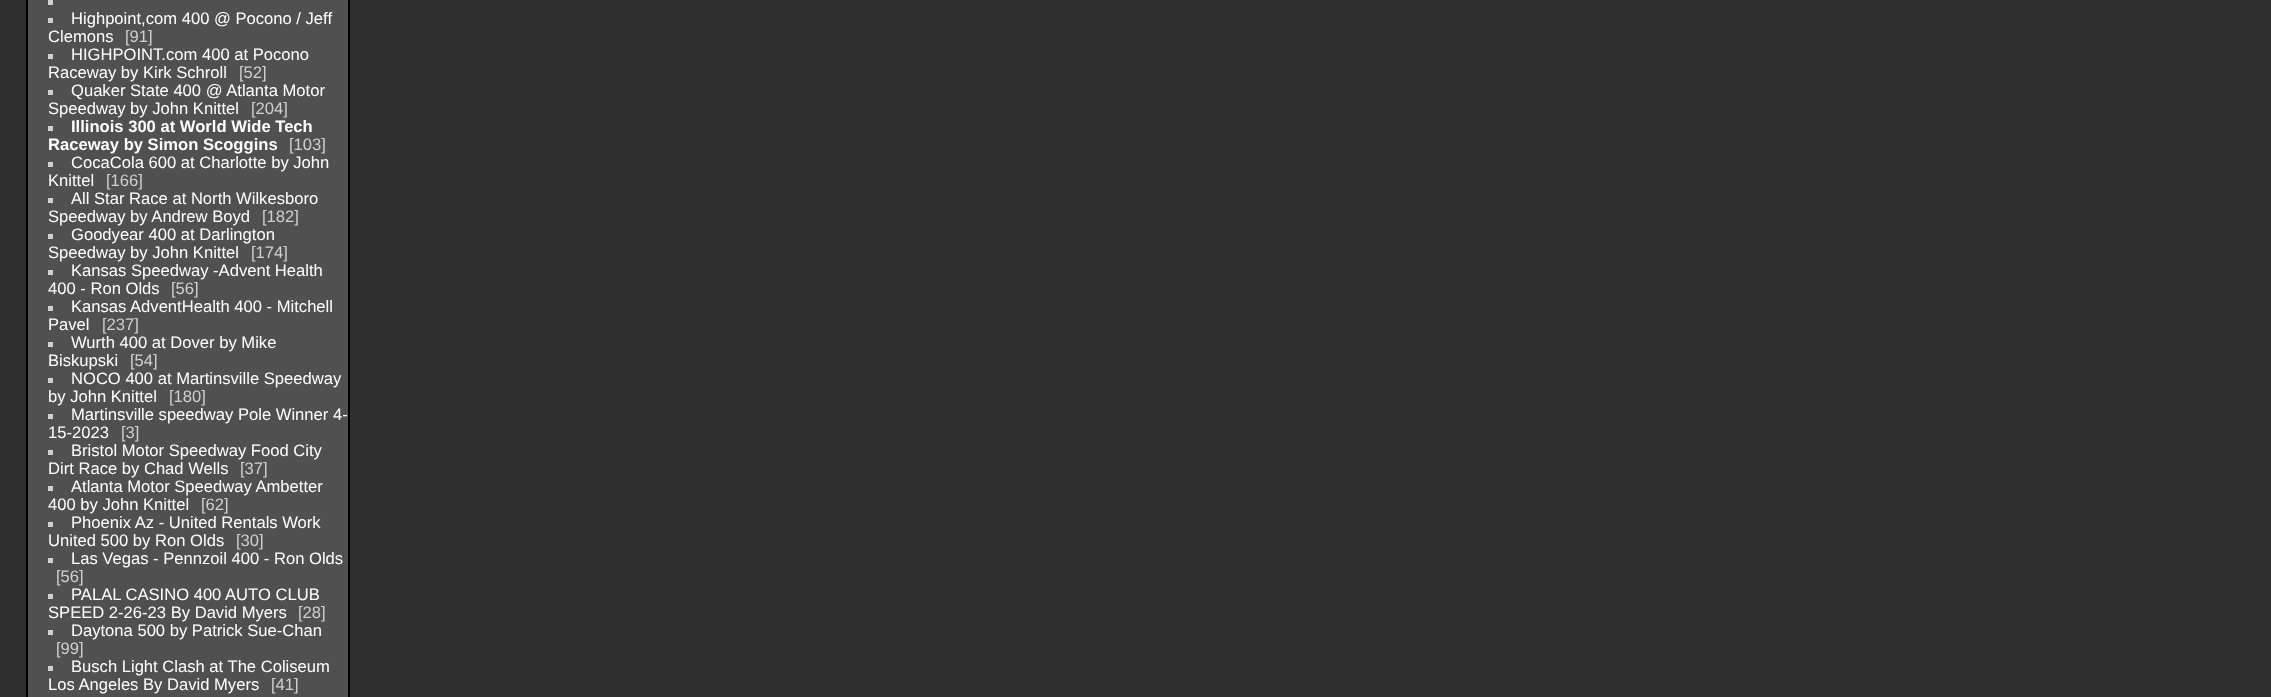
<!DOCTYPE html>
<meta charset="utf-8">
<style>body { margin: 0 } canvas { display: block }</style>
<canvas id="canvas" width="2271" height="697"></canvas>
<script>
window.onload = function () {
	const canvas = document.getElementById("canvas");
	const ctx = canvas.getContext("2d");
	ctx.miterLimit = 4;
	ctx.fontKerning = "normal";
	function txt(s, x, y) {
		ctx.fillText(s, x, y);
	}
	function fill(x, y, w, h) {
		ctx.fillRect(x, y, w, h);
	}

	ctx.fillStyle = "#2F2F2F";
	fill(0, 0, 2271, 697);
	ctx.fillStyle = "#505050";
	ctx.beginPath();
	ctx.rect(27, -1, 322, 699);
	ctx.fill();
	ctx.strokeStyle = "#000000";
	ctx.lineWidth = 2;
	ctx.stroke();
	ctx.fillStyle = "#D0D0D0";
	fill(48, 0, 5, 5);
	fill(48, 18, 5, 5);
	fill(48, 54, 5, 5);
	fill(48, 90, 5, 5);
	fill(48, 126, 5, 5);
	fill(48, 162, 5, 5);
	fill(48, 198, 5, 5);
	fill(48, 234, 5, 5);
	fill(48, 270, 5, 5);
	fill(48, 306, 5, 5);
	fill(48, 342, 5, 5);
	fill(48, 378, 5, 5);
	fill(48, 414, 5, 5);
	fill(48, 450, 5, 5);
	fill(48, 486, 5, 5);
	fill(48, 522, 5, 5);
	fill(48, 558, 5, 5);
	fill(48, 594, 5, 5);
	fill(48, 630, 5, 5);
	fill(48, 666, 5, 5);
	ctx.font = "16.6px Liberation Sans";
	ctx.fillStyle = "#FFFFFF";
	txt("Highpoint,com 400 @ Pocono / Jeff", 71, 24);
	txt("Clemons", 48, 42);
	ctx.fillStyle = "#D0D0D0";
	txt("[91]", 125, 42);
	ctx.fillStyle = "#FFFFFF";
	txt("HIGHPOINT.com 400 at Pocono", 71, 60);
	txt("Raceway by Kirk Schroll", 48, 78);
	ctx.fillStyle = "#D0D0D0";
	txt("[52]", 239, 78);
	ctx.fillStyle = "#FFFFFF";
	txt("Quaker State 400 @ Atlanta Motor", 71, 96);
	txt("Speedway by John Knittel", 48, 114);
	ctx.fillStyle = "#D0D0D0";
	txt("[204]", 251, 114);
	ctx.font = "bold 16.6px Liberation Sans";
	ctx.fillStyle = "#FFFFFF";
	txt("Illinois 300 at World Wide Tech", 71, 132);
	txt("Raceway by Simon Scoggins", 48, 150);
	ctx.font = "16.6px Liberation Sans";
	ctx.fillStyle = "#D0D0D0";
	txt("[103]", 289, 150);
	ctx.fillStyle = "#FFFFFF";
	txt("CocaCola 600 at Charlotte by John", 71, 168);
	txt("Knittel", 48, 186);
	ctx.fillStyle = "#D0D0D0";
	txt("[166]", 106, 186);
	ctx.fillStyle = "#FFFFFF";
	txt("All Star Race at North Wilkesboro", 71, 204);
	txt("Speedway by Andrew Boyd", 48, 222);
	ctx.fillStyle = "#D0D0D0";
	txt("[182]", 262, 222);
	ctx.fillStyle = "#FFFFFF";
	txt("Goodyear 400 at Darlington", 71, 240);
	txt("Speedway by John Knittel", 48, 258);
	ctx.fillStyle = "#D0D0D0";
	txt("[174]", 251, 258);
	ctx.fillStyle = "#FFFFFF";
	txt("Kansas Speedway -Advent Health", 71, 276);
	txt("400 - Ron Olds", 48, 294);
	ctx.fillStyle = "#D0D0D0";
	txt("[56]", 171, 294);
	ctx.fillStyle = "#FFFFFF";
	txt("Kansas AdventHealth 400 - Mitchell", 71, 312);
	txt("Pavel", 48, 330);
	ctx.fillStyle = "#D0D0D0";
	txt("[237]", 102, 330);
	ctx.fillStyle = "#FFFFFF";
	txt("Wurth 400 at Dover by Mike", 71, 348);
	txt("Biskupski", 48, 366);
	ctx.fillStyle = "#D0D0D0";
	txt("[54]", 130, 366);
	ctx.fillStyle = "#FFFFFF";
	txt("NOCO 400 at Martinsville Speedway", 71, 384);
	txt("by John Knittel", 48, 402);
	ctx.fillStyle = "#D0D0D0";
	txt("[180]", 169, 402);
	ctx.fillStyle = "#FFFFFF";
	txt("Martinsville speedway Pole Winner 4-", 71, 420);
	txt("15-2023", 48, 438);
	ctx.fillStyle = "#D0D0D0";
	txt("[3]", 121, 438);
	ctx.fillStyle = "#FFFFFF";
	txt("Bristol Motor Speedway Food City", 71, 456);
	txt("Dirt Race by Chad Wells", 48, 474);
	ctx.fillStyle = "#D0D0D0";
	txt("[37]", 240, 474);
	ctx.fillStyle = "#FFFFFF";
	txt("Atlanta Motor Speedway Ambetter", 71, 492);
	txt("400 by John Knittel", 48, 510);
	ctx.fillStyle = "#D0D0D0";
	txt("[62]", 201, 510);
	ctx.fillStyle = "#FFFFFF";
	txt("Phoenix Az - United Rentals Work", 71, 528);
	txt("United 500 by Ron Olds", 48, 546);
	ctx.fillStyle = "#D0D0D0";
	txt("[30]", 236, 546);
	ctx.fillStyle = "#FFFFFF";
	txt("Las Vegas - Pennzoil 400 - Ron Olds", 71, 564);
	ctx.fillStyle = "#D0D0D0";
	txt("[56]", 56, 582);
	ctx.fillStyle = "#FFFFFF";
	txt("PALAL CASINO 400 AUTO CLUB", 71, 600);
	txt("SPEED 2-26-23 By David Myers", 48, 618);
	ctx.fillStyle = "#D0D0D0";
	txt("[28]", 298, 618);
	ctx.fillStyle = "#FFFFFF";
	txt("Daytona 500 by Patrick Sue-Chan", 71, 636);
	ctx.fillStyle = "#D0D0D0";
	txt("[99]", 56, 654);
	ctx.fillStyle = "#FFFFFF";
	txt("Busch Light Clash at The Coliseum", 71, 672);
	txt("Los Angeles By David Myers", 48, 690);
	ctx.fillStyle = "#D0D0D0";
	txt("[41]", 271, 690);
};
</script>
